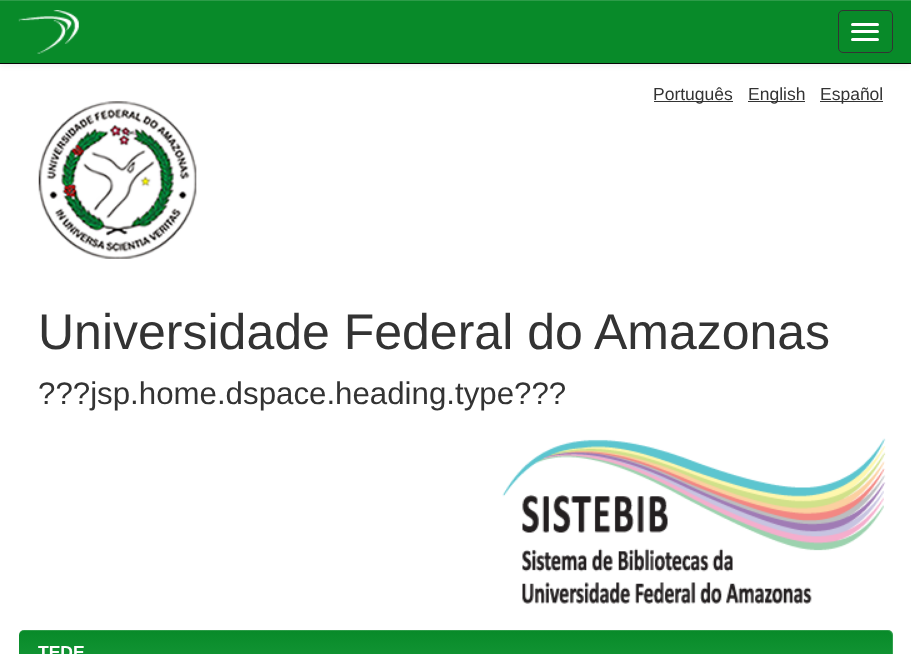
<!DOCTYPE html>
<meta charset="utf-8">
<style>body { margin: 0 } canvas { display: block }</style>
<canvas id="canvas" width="911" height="654"></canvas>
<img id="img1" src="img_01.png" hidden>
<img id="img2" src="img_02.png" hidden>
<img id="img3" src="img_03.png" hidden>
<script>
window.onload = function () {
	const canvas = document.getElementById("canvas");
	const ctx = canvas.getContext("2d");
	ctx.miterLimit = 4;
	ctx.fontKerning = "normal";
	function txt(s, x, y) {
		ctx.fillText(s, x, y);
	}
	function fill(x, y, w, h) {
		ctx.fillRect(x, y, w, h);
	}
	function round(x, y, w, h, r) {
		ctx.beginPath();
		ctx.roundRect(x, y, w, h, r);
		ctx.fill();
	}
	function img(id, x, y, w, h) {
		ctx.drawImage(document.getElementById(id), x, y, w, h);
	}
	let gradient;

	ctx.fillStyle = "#FFFFFF";
	fill(0, 0, 911, 654);
	ctx.fillStyle = "rgba(0, 0, 0, 0.07)";
	ctx.filter = "blur(3px)";
	ctx.beginPath();
	ctx.rect(0, 1, 911, 64);
	ctx.fill();
	ctx.filter = "none";
	ctx.fillStyle = "#088A29";
	fill(0, 1, 911, 62);
	ctx.fillStyle = "#2D9C49";
	fill(0, 0, 911, 1);
	ctx.fillStyle = "#080808";
	fill(0, 63, 911, 1);
	img("img1", 18, 10, 61, 44);
	ctx.beginPath();
	ctx.roundRect(838.5, 10.5, 54, 42, 4.5);
	ctx.strokeStyle = "#333333";
	ctx.stroke();
	ctx.fillStyle = "#FFFFFF";
	round(851, 23, 28, 3, 1.5);
	round(851, 30, 28, 3, 1.5);
	round(851, 38, 28, 3, 1.5);
	ctx.fillStyle = "#333333";
	fill(654, 101, 79, 1);
	fill(748, 101, 57, 1);
	fill(820, 101, 63, 1);
	img("img2", 38, 101, 159, 158);
	img("img3", 502, 438, 384, 166);
	ctx.fillStyle = "rgba(0, 0, 0, 0.07)";
	ctx.filter = "blur(0.5px)";
	ctx.beginPath();
	ctx.roundRect(19, 631, 874, 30, 5);
	ctx.fill();
	ctx.filter = "none";
	gradient = ctx.createLinearGradient(456, 630, 456, 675);
	gradient.addColorStop(0, "#088A29");
	gradient.addColorStop(1, "#189A3A");
	ctx.fillStyle = gradient;
	round(19, 630, 874, 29, 5);
	ctx.fillStyle = "rgba(255, 255, 255, 0.15)";
	ctx.beginPath();
	ctx.moveTo(24, 631);
	ctx.lineTo(888, 631);
	ctx.bezierCurveTo(890, 631, 892, 633, 892, 636);
	ctx.lineTo(892, 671);
	ctx.lineTo(891, 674);
	ctx.bezierCurveTo(892, 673, 893, 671, 893, 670);
	ctx.lineTo(893, 635);
	ctx.bezierCurveTo(893, 632, 891, 630, 888, 630);
	ctx.lineTo(24, 630);
	ctx.bezierCurveTo(21, 630, 19, 632, 19, 635);
	ctx.lineTo(19, 636);
	ctx.bezierCurveTo(19, 633, 21, 631, 24, 631);
	ctx.closePath();
	ctx.fill();
	ctx.font = "17.5px Liberation Sans";
	ctx.fillStyle = "#333333";
	txt("Português", 653, 100);
	txt("English", 748, 100);
	txt("Español", 820, 100);
	ctx.font = "50px Liberation Sans";
	txt("Universidade Federal do Amazonas", 38, 349);
	ctx.font = "31.25px Liberation Sans";
	txt("???jsp.home.dspace.heading.type???", 38, 404);
	ctx.font = "bold 17.5px Liberation Sans";
	ctx.fillStyle = "#FFFFFF";
	txt("TEDE", 38, 658);
};
</script>
